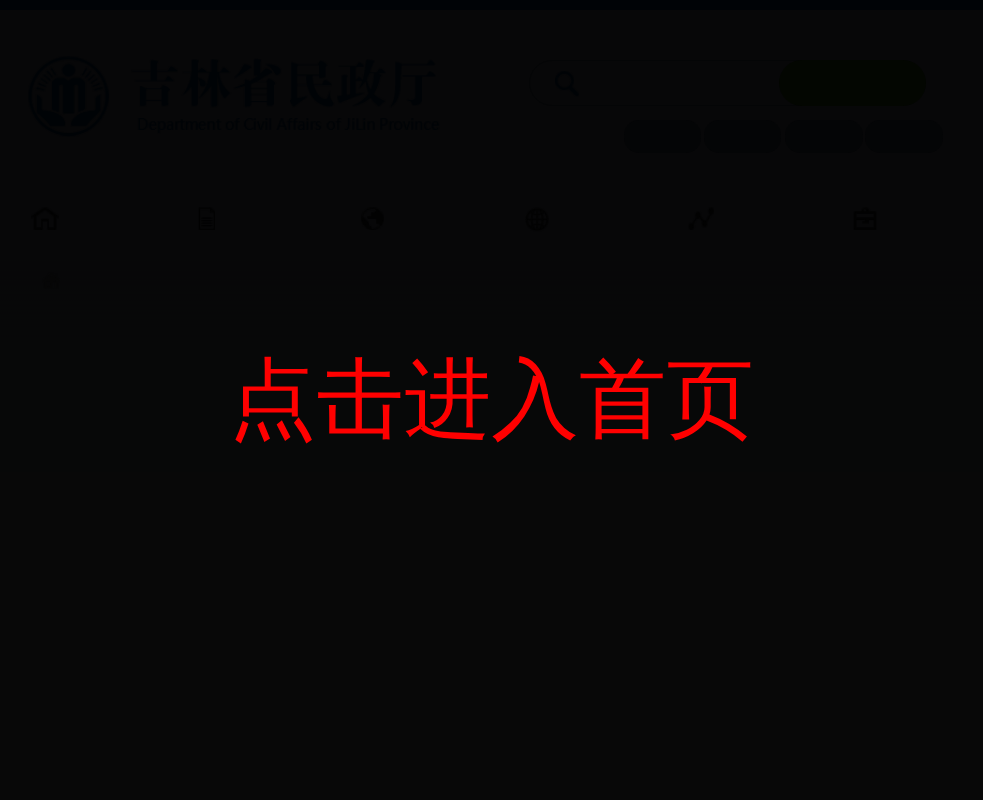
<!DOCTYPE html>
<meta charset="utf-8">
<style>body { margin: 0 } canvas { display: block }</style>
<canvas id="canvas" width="983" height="800"></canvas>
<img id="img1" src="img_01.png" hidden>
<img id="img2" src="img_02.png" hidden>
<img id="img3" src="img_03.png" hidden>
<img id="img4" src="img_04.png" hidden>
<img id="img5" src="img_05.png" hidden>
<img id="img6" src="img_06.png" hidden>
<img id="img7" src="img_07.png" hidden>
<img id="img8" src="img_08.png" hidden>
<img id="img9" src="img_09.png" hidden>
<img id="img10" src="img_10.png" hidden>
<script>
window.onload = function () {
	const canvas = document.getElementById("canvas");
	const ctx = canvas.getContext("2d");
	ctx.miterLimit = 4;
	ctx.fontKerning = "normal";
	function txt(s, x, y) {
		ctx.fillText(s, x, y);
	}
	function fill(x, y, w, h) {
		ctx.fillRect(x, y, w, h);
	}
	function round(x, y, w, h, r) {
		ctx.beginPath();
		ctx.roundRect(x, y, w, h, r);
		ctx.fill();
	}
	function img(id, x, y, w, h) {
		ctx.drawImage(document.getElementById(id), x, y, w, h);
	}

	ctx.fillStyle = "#080808";
	fill(0, 0, 983, 800);
	img("img1", 0, 10, 983, 462);
	ctx.fillStyle = "#000306";
	fill(0, 0, 983, 10);
	img("img2", 28, 56, 412, 81);
	ctx.beginPath();
	ctx.roundRect(529.5, 60.5, 359, 45, 22.5);
	ctx.strokeStyle = "#040506";
	ctx.stroke();
	img("img3", 555, 71, 24, 26);
	ctx.fillStyle = "#030601";
	round(779, 60, 147, 46, 23);
	ctx.fillStyle = "#040506";
	round(624, 120, 77, 33, 15);
	round(704, 120, 77, 33, 15);
	round(785, 120, 78, 33, 15);
	round(865, 120, 78, 33, 15);
	img("img4", 31, 207, 28, 23);
	img("img5", 198, 207, 17, 23);
	img("img6", 361, 207, 23, 23);
	img("img7", 525, 207, 24, 25);
	img("img8", 688, 207, 26, 23);
	img("img9", 853, 207, 24, 23);
	img("img10", 42, 272, 18, 17);
	ctx.font = "500 87.5px WenQuanYi Zen Hei";
	ctx.fillStyle = "#FF0000";
	txt("点击进入首页", 229, 429);
};
</script>
